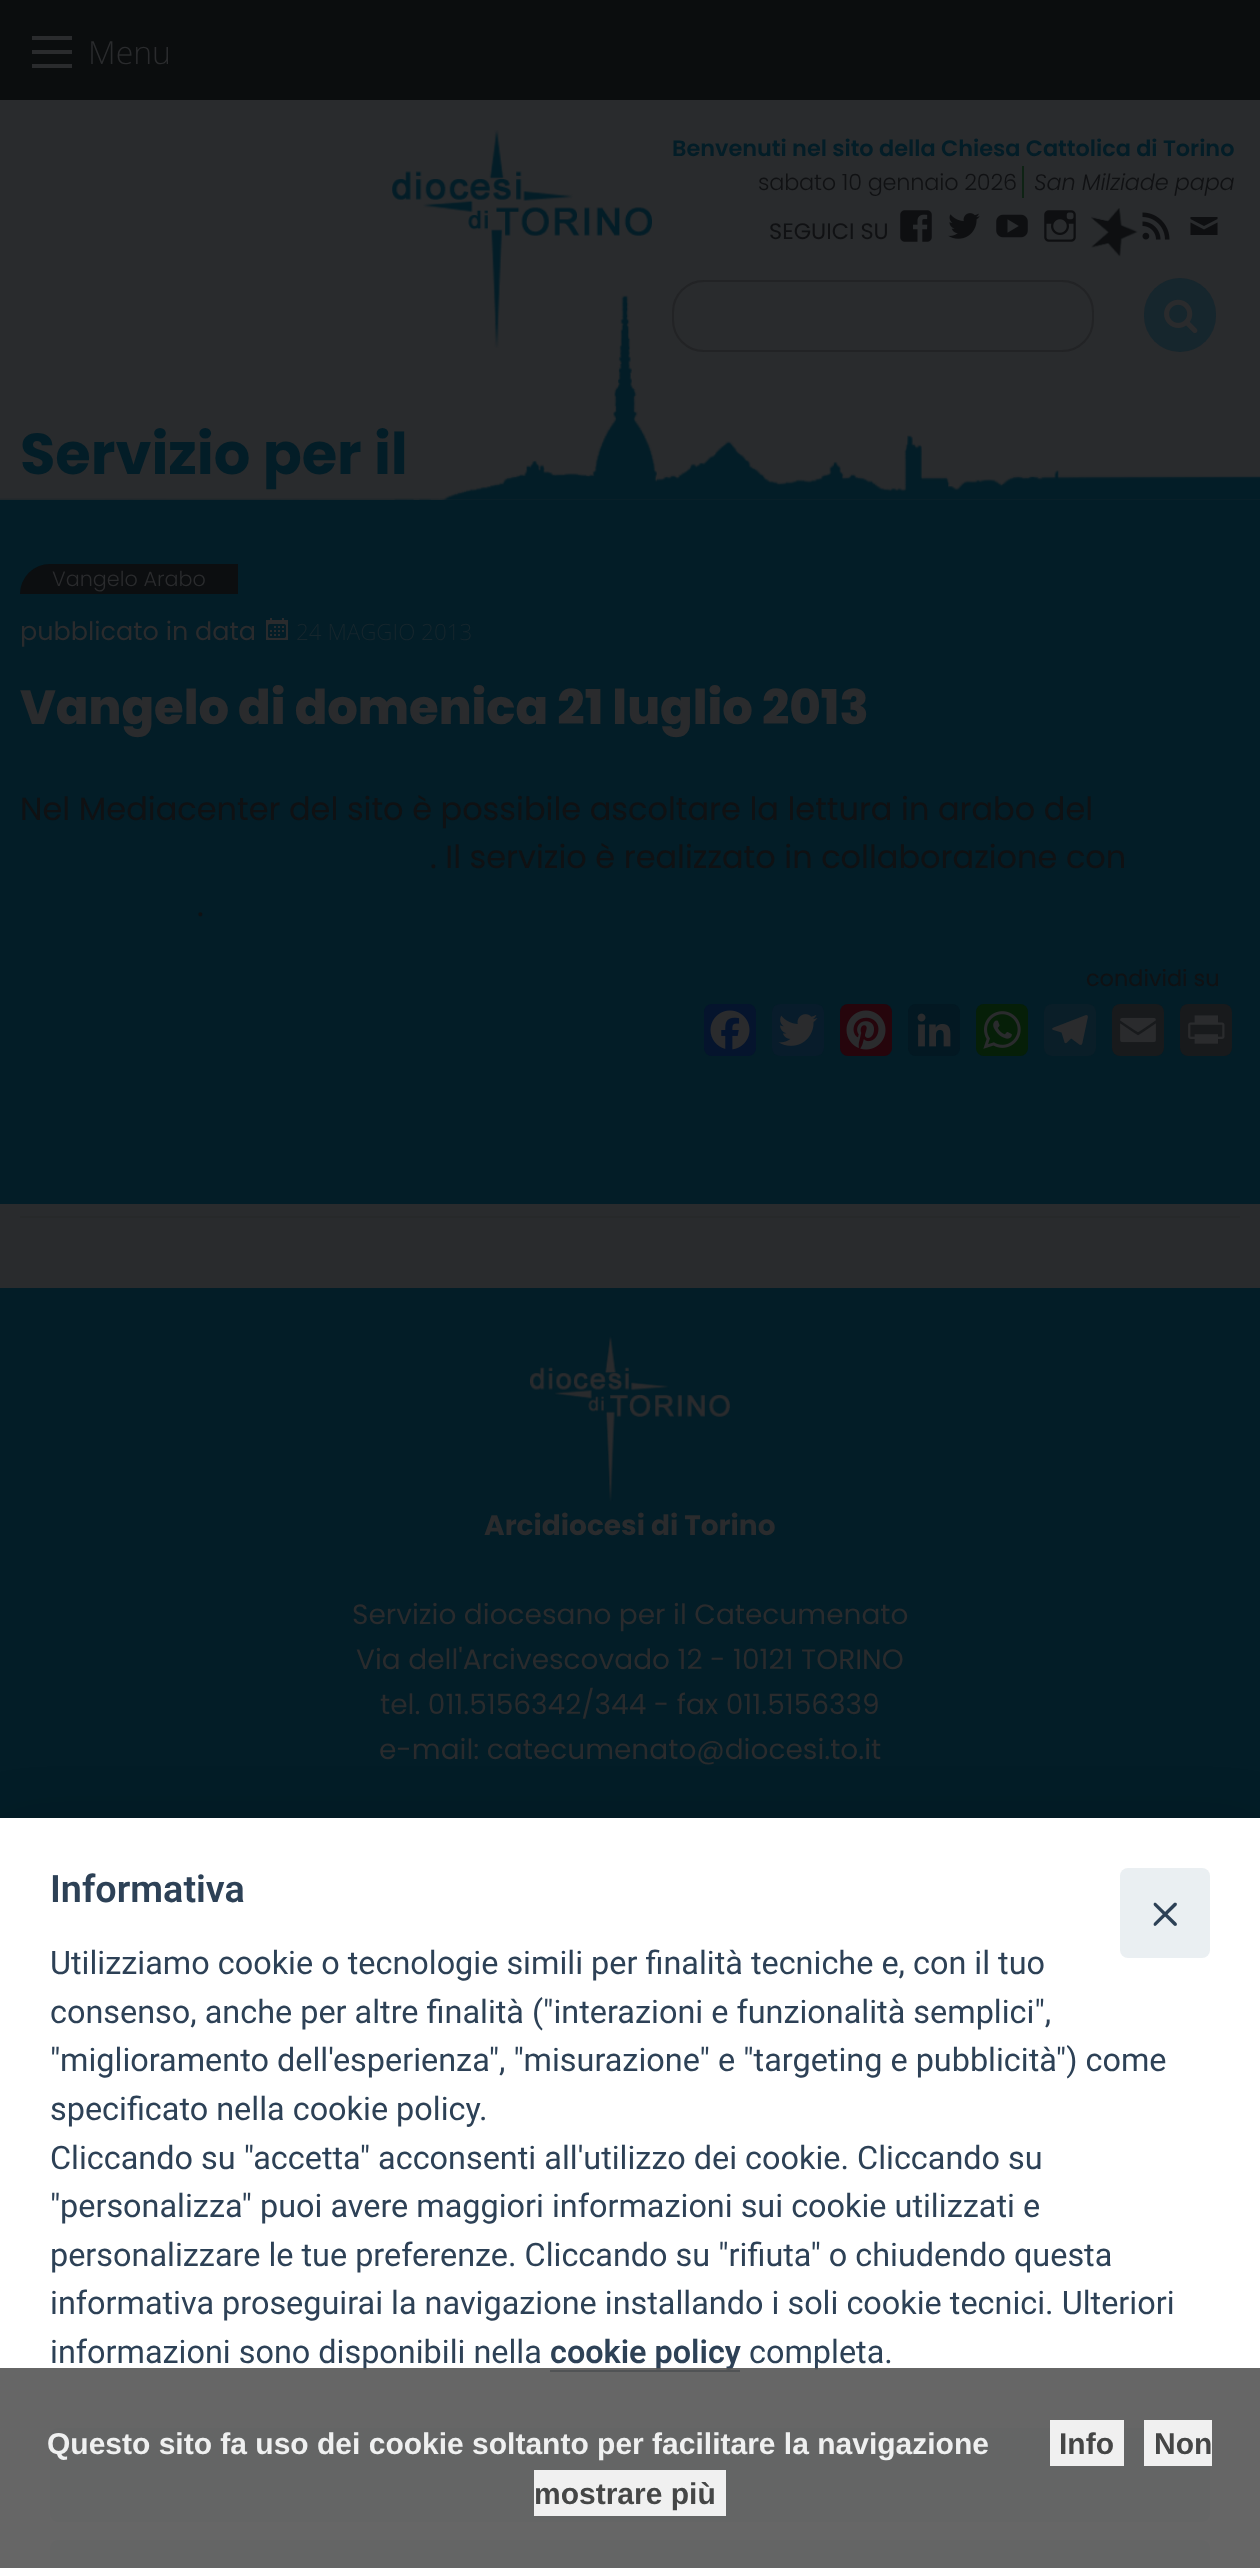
<!DOCTYPE html>
<meta charset="utf-8">
<style>body { margin: 0 } canvas { display: block }</style>
<canvas id="canvas" width="1260" height="2568"></canvas>
<img id="img1" src="img_01.png" hidden>
<img id="img2" src="img_02.png" hidden>
<img id="img3" src="img_03.png" hidden>
<img id="img4" src="img_04.png" hidden>
<img id="img5" src="img_05.png" hidden>
<img id="img6" src="img_06.png" hidden>
<img id="img7" src="img_07.png" hidden>
<img id="img8" src="img_08.png" hidden>
<img id="img9" src="img_09.png" hidden>
<img id="img10" src="img_10.png" hidden>
<img id="img11" src="img_11.png" hidden>
<img id="img12" src="img_12.png" hidden>
<img id="img13" src="img_13.png" hidden>
<img id="img14" src="img_14.png" hidden>
<img id="img15" src="img_15.png" hidden>
<img id="img16" src="img_16.png" hidden>
<img id="img17" src="img_17.png" hidden>
<img id="img18" src="img_18.png" hidden>
<img id="img19" src="img_19.png" hidden>
<script>
window.onload = function () {
	const canvas = document.getElementById("canvas");
	const ctx = canvas.getContext("2d");
	ctx.miterLimit = 4;
	ctx.fontKerning = "normal";
	function txt(s, x, y) {
		ctx.fillText(s, x, y);
	}
	function fill(x, y, w, h) {
		ctx.fillRect(x, y, w, h);
	}
	function round(x, y, w, h, r) {
		ctx.beginPath();
		ctx.roundRect(x, y, w, h, r);
		ctx.fill();
	}
	function img(id, x, y, w, h) {
		ctx.drawImage(document.getElementById(id), x, y, w, h);
	}

	ctx.fillStyle = "#292B2D";
	fill(0, 0, 1260, 2568);
	ctx.fillStyle = "#0B0D0E";
	fill(0, 0, 1260, 100);
	ctx.fillStyle = "#2A2B2D";
	fill(32, 64, 40, 4);
	fill(32, 50, 40, 4);
	fill(32, 36, 40, 4);
	img("img1", 0, 295, 1260, 205);
	ctx.fillStyle = "#0E2314";
	fill(1022, 166, 2, 32);
	img("img2", 900, 210, 32, 32);
	img("img3", 948, 213, 32, 26);
	img("img4", 996, 214, 32, 24);
	img("img5", 1044, 210, 32, 32);
	img("img6", 1091, 208, 47, 49);
	img("img7", 1142, 212, 28, 28);
	ctx.fillStyle = "#0E0F11";
	ctx.beginPath();
	ctx.moveTo(1190.5, 217);
	ctx.lineTo(1217.5, 217);
	ctx.lineTo(1217.5, 219);
	ctx.lineTo(1204, 226);
	ctx.lineTo(1190.5, 219);
	ctx.closePath();
	ctx.moveTo(1190.5, 222.5);
	ctx.lineTo(1204, 229.5);
	ctx.lineTo(1217.5, 222.5);
	ctx.lineTo(1217.5, 235);
	ctx.lineTo(1190.5, 235);
	ctx.closePath();
	ctx.fill();
	ctx.beginPath();
	ctx.roundRect(673, 281, 420, 70, 31);
	ctx.strokeStyle = "#222325";
	ctx.lineWidth = 2;
	ctx.stroke();
	ctx.fillStyle = "#16262D";
	round(1144, 278, 72, 74, 36);
	img("img8", 1164, 299, 34, 35);
	img("img9", 392, 130, 260, 218);
	ctx.fillStyle = "#031D27";
	fill(0, 500, 1260, 704);
	ctx.fillStyle = "#27292A";
	fill(20, 1216, 1220, 2);
	ctx.fillStyle = "#0C0E10";
	ctx.beginPath();
	ctx.roundRect(20, 564, 218, 30, [30, 0, 0, 0]);
	ctx.fill();
	img("img10", 266, 618, 22, 22);
	ctx.fillStyle = "#05142D";
	round(704, 1004, 52, 52, 8);
	img("img11", 710, 1010, 40, 40);
	ctx.fillStyle = "#081C2B";
	round(772, 1004, 52, 52, 8);
	img("img12", 778, 1014, 40, 32);
	ctx.fillStyle = "#26050C";
	round(840, 1004, 52, 52, 8);
	img("img13", 846, 1010, 40, 40);
	ctx.fillStyle = "#031822";
	round(908, 1004, 52, 52, 8);
	img("img14", 917, 1013, 34, 34);
	ctx.fillStyle = "#061F08";
	round(976, 1004, 52, 52, 8);
	img("img15", 983, 1011, 38, 38);
	ctx.fillStyle = "#0A1E28";
	round(1044, 1004, 52, 52, 8);
	img("img16", 1052, 1015, 36, 30);
	ctx.fillStyle = "#181A1C";
	round(1112, 1004, 52, 52, 8);
	img("img17", 1120, 1017, 36, 26);
	round(1180, 1004, 52, 52, 8);
	img("img18", 1188, 1015, 37, 29);
	ctx.fillStyle = "#031D27";
	fill(0, 1288, 1260, 530);
	img("img19", 530, 1336, 200, 166);
	ctx.fillStyle = "rgba(2, 2, 3, 0.28)";
	ctx.filter = "blur(34px)";
	ctx.beginPath();
	ctx.rect(0, 1840, 1260, 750);
	ctx.fill();
	ctx.filter = "none";
	ctx.fillStyle = "#FFFFFF";
	fill(0, 1818, 1260, 750);
	ctx.fillStyle = "#EAEFF2";
	round(1120, 1868, 90, 90, 8);
	ctx.fillStyle = "#2D4156";
	ctx.beginPath();
	ctx.moveTo(1176.5, 1903);
	ctx.bezierCurveTo(1177, 1904, 1177, 1904.5, 1176.5, 1905.5);
	ctx.lineTo(1156, 1925.5);
	ctx.bezierCurveTo(1155.5, 1926, 1154.5, 1926, 1154, 1925.5);
	ctx.bezierCurveTo(1153.5, 1925, 1153.5, 1924, 1154, 1923);
	ctx.lineTo(1174, 1903);
	ctx.bezierCurveTo(1174.5, 1902.5, 1175.5, 1902.5, 1176.5, 1903);
	ctx.closePath();
	ctx.fill();
	ctx.beginPath();
	ctx.moveTo(1154, 1903);
	ctx.bezierCurveTo(1154.5, 1902.5, 1155.5, 1902.5, 1156, 1903);
	ctx.lineTo(1176.5, 1923);
	ctx.bezierCurveTo(1177, 1924, 1177, 1925, 1176.5, 1925.5);
	ctx.bezierCurveTo(1175.5, 1926, 1174.5, 1926, 1174, 1925.5);
	ctx.lineTo(1154, 1905.5);
	ctx.bezierCurveTo(1153.5, 1904.5, 1153.5, 1904, 1154, 1903);
	ctx.closePath();
	ctx.fill();
	fill(550, 2370, 190, 2);
	ctx.fillStyle = "#EAEFF2";
	round(50, 2428, 1160, 94, 8);
	ctx.beginPath();
	ctx.roundRect(50, 2540, 1160, 28, [8, 8, 0, 0]);
	ctx.fill();
	ctx.font = "300 32px Open Sans";
	ctx.fillStyle = "#2A2B2D";
	txt("Menu", 88, 64);
	ctx.font = "600 22.4px Poppins";
	ctx.fillStyle = "#031D27";
	txt("Benvenuti nel sito della Chiesa Cattolica di Torino", 672, 156);
	ctx.letterSpacing = "-0.2px";
	ctx.font = "300 22.4px Poppins";
	ctx.fillStyle = "#101113";
	txt("sabato 10 gennaio 2026", 758, 190);
	ctx.font = "italic 300 22.4px Poppins";
	txt("San Milziade papa", 1034, 190);
	ctx.letterSpacing = "0px";
	ctx.font = "22.4px Poppins";
	txt("SEGUICI SU", 769, 239);
	ctx.font = "bold 57.5px Poppins";
	ctx.fillStyle = "#031D27";
	txt("Servizio per il", 20, 474);
	ctx.font = "300 20.75px Poppins";
	ctx.fillStyle = "#2A2B2D";
	txt("Vangelo Arabo", 52, 586);
	ctx.font = "25.5px Poppins";
	txt("pubblicato in data", 20, 640);
	ctx.font = "300 22.4px Open Sans";
	ctx.fillStyle = "#16262D";
	txt("24 MAGGIO 2013", 296, 640);
	ctx.font = "800 48px Poppins";
	ctx.fillStyle = "#2A2B2D";
	txt("Vangelo di domenica 21 luglio 2013", 20, 724);
	ctx.font = "32px Poppins";
	ctx.fillStyle = "#101113";
	txt("Nel Mediacenter del sito è possibile ascoltare la lettura in arabo del", 20, 820);
	txt(". Il servizio è realizzato in collaborazione con", 430, 868);
	txt(".", 197, 916);
	ctx.font = "22.4px Poppins";
	txt("condividi su", 1086, 986);
	ctx.font = "bold 28px Poppins";
	ctx.fillStyle = "#2A2B2D";
	txt("Arcidiocesi di Torino", 484, 1535);
	ctx.font = "28px Poppins";
	txt("Servizio diocesano per il Catecumenato", 352, 1624);
	txt("Via dell'Arcivescovado 12 - 10121 TORINO", 356, 1669);
	txt("tel. 011.5156342/344 - fax 011.5156339", 380, 1714);
	txt("e-mail: catecumenato@diocesi.to.it", 379, 1759);
	ctx.font = "600 37.75px Roboto";
	ctx.fillStyle = "#2D4156";
	txt("Informativa", 50, 1902);
	ctx.font = "32.4px Roboto";
	txt("Utilizziamo cookie o tecnologie simili per finalità tecniche e, con il tuo", 50, 1974);
	txt("consenso, anche per altre finalità (\"interazioni e funzionalità semplici\",", 50, 2023);
	txt("\"miglioramento dell'esperienza\", \"misurazione\" e \"targeting e pubblicità\") come", 50, 2071);
	txt("specificato nella cookie policy.", 50, 2120);
	txt("Cliccando su \"accetta\" acconsenti all'utilizzo dei cookie. Cliccando su", 50, 2169);
	txt("\"personalizza\" puoi avere maggiori informazioni sui cookie utilizzati e", 50, 2217);
	txt("personalizzare le tue preferenze. Cliccando su \"rifiuta\" o chiudendo questa", 50, 2266);
	txt("informativa proseguirai la navigazione installando i soli cookie tecnici. Ulteriori", 50, 2314);
	txt("informazioni sono disponibili nella", 50, 2363);
	ctx.font = "600 32.4px Roboto";
	txt("cookie policy", 550, 2363);
	ctx.font = "32.4px Roboto";
	txt("completa.", 749, 2363);
	ctx.fillStyle = "rgba(85, 85, 85, 0.9)";
	fill(0, 2368, 1260, 200);
	ctx.font = "bold 30px Liberation Sans";
	ctx.fillStyle = "#EFF0F0";
	txt("Questo sito fa uso dei cookie soltanto per facilitare la navigazione", 47, 2454);
	ctx.fillStyle = "#F0F0F0";
	fill(1050, 2420, 74, 46);
	ctx.fillStyle = "#454646";
	txt("Info", 1059, 2454);
	ctx.fillStyle = "#F0F0F0";
	fill(1144, 2420, 68, 46);
	ctx.fillStyle = "#454646";
	txt("Non", 1154, 2454);
	ctx.fillStyle = "rgba(255, 255, 255, 0.9)";
	fill(534, 2470, 192, 46);
	ctx.fillStyle = "#454646";
	txt("mostrare più", 534, 2504);
};
</script>
